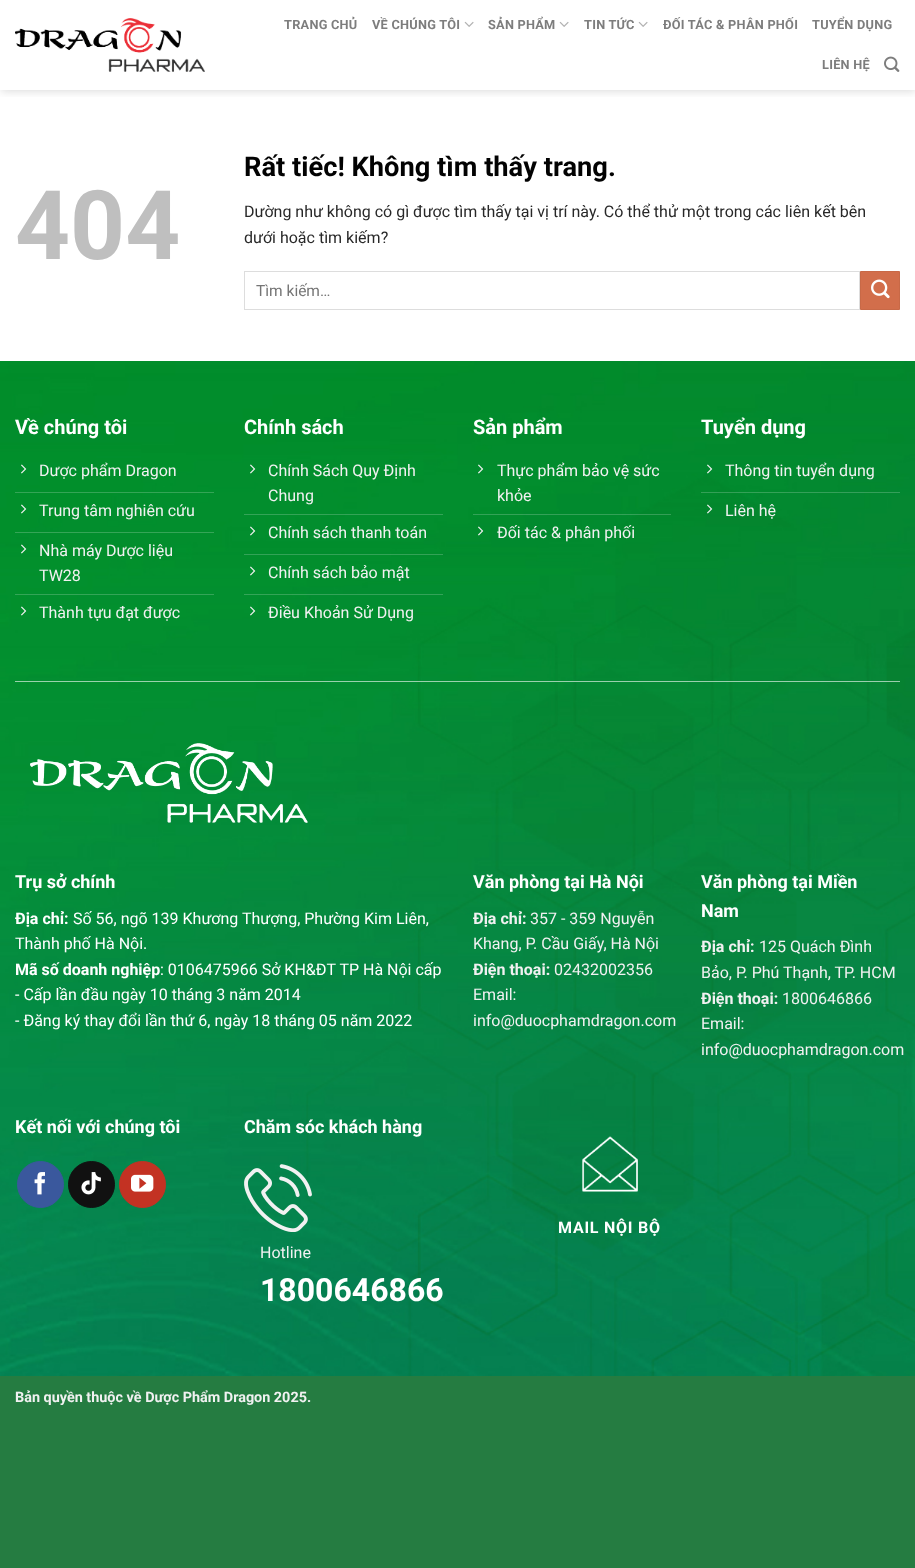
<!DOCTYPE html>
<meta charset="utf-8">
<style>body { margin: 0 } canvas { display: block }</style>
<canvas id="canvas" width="915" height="1568"></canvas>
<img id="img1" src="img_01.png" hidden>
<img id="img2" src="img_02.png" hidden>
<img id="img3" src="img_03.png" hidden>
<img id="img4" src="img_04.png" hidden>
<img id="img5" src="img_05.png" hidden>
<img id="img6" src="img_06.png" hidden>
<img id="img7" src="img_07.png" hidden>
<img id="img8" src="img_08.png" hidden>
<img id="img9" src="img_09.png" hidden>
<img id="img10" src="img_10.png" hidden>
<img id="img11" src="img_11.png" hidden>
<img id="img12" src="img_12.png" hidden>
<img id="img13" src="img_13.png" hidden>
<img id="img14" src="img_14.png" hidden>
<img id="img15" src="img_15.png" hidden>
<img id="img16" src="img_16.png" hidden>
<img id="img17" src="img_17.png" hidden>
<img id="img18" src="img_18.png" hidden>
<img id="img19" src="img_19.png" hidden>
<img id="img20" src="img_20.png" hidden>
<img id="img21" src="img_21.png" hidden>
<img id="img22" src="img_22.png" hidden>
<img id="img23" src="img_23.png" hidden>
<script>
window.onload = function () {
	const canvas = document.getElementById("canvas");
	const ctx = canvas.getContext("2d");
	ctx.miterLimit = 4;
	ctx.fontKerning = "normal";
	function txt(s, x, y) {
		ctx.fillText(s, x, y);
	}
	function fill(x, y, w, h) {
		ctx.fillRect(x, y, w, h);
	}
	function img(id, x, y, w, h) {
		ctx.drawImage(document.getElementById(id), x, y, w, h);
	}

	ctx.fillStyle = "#257C41";
	fill(0, 0, 915, 1568);
	ctx.fillStyle = "#FFFFFF";
	fill(0, 0, 915, 361);
	ctx.save();
	ctx.beginPath();
	ctx.rect(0, 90, 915, 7);
	ctx.clip();
	ctx.fillStyle = "rgba(0, 0, 0, 0.15)";
	ctx.filter = "blur(5px)";
	ctx.beginPath();
	ctx.rect(1, 1, 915, 90);
	ctx.fill();
	ctx.filter = "none";
	ctx.restore();
	img("img1", 15, 18, 190, 54);
	img("img2", 464, 21, 10, 6);
	img("img2", 559, 21, 10, 6);
	img("img2", 638, 21, 10, 6);
	img("img3", 884, 56, 16, 16);
	ctx.strokeStyle = "#DDDDDD";
	ctx.strokeRect(244.5, 271.5, 615, 38);
	ctx.fillStyle = "#D26E4B";
	ctx.beginPath();
	ctx.rect(860.5, 271.5, 39, 38);
	ctx.fill();
	ctx.strokeStyle = "#C86947";
	ctx.stroke();
	img("img4", 871, 279, 19, 20);
	img("img5", 0, 361, 915, 1015);
	ctx.fillStyle = "#34A556";
	fill(15, 492, 199, 1);
	img("img6", 21, 464, 6, 10);
	ctx.fillStyle = "#35A557";
	fill(15, 532, 199, 1);
	img("img7", 21, 504, 6, 10);
	ctx.fillStyle = "rgba(255, 255, 255, 0.2)";
	fill(15, 594, 199, 1);
	img("img8", 21, 544, 6, 10);
	img("img9", 21, 606, 6, 10);
	fill(244, 514, 199, 1);
	img("img10", 250, 464, 6, 10);
	fill(244, 554, 199, 1);
	img("img11", 250, 526, 6, 10);
	fill(244, 594, 199, 1);
	img("img12", 250, 566, 6, 10);
	img("img13", 250, 606, 6, 10);
	fill(473, 514, 198, 1);
	img("img14", 478, 464, 6, 10);
	img("img15", 478, 526, 6, 10);
	fill(701, 492, 199, 1);
	img("img16", 707, 464, 6, 10);
	img("img17", 707, 504, 6, 10);
	ctx.fillStyle = "rgba(255, 255, 255, 0.6)";
	fill(15, 681, 885, 1);
	img("img18", 30, 743, 278, 80);
	ctx.fillStyle = "#3A589D";
	ctx.beginPath();
	ctx.arc(40.5, 1184.5, 23, 0, Math.PI * 2);
	ctx.fill();
	ctx.strokeStyle = "#3A589D";
	ctx.stroke();
	img("img19", 34, 1172, 11, 23);
	ctx.fillStyle = "#111111";
	ctx.beginPath();
	ctx.arc(91.5, 1184.5, 23, 0, Math.PI * 2);
	ctx.fill();
	ctx.strokeStyle = "#111111";
	ctx.stroke();
	img("img20", 81, 1172, 20, 23);
	ctx.fillStyle = "#C33223";
	ctx.beginPath();
	ctx.arc(142.5, 1184.5, 23, 0, Math.PI * 2);
	ctx.fill();
	ctx.strokeStyle = "#C33223";
	ctx.stroke();
	img("img21", 131, 1174, 23, 18);
	img("img22", 244, 1164, 68, 68);
	img("img23", 582, 1136, 56, 56);
	ctx.letterSpacing = "0.25px";
	ctx.font = "bold 12.75px Roboto";
	ctx.fillStyle = "#7D7D7D";
	txt("TRANG CHỦ", 284, 29);
	txt("VỀ CHÚNG TÔI", 372, 29);
	txt("SẢN PHẨM", 488, 29);
	txt("TIN TỨC", 584, 29);
	txt("ĐỐI TÁC & PHÂN PHỐI", 663, 29);
	txt("TUYỂN DỤNG", 812, 29);
	txt("LIÊN HỆ", 822, 69);
	ctx.letterSpacing = "0px";
	ctx.font = "bold 96px Roboto";
	ctx.fillStyle = "#BFBFBF";
	txt("404", 15, 259);
	ctx.font = "bold 27.25px Roboto";
	ctx.fillStyle = "#020202";
	txt("Rất tiếc! Không tìm thấy trang.", 244, 176);
	ctx.font = "16px Roboto";
	ctx.fillStyle = "#282828";
	txt("Dường như không có gì được tìm thấy tại vị trí này. Có thể thử một trong các liên kết bên", 244, 217);
	txt("dưới hoặc tìm kiếm?", 244, 243);
	ctx.font = "15.5px Roboto";
	ctx.fillStyle = "#757575";
	txt("Tìm kiếm…", 256, 296);
	ctx.font = "bold 20px Roboto";
	ctx.fillStyle = "#FFFFFF";
	txt("Về chúng tôi", 15, 434);
	ctx.font = "16px Roboto";
	ctx.fillStyle = "#F1F1F1";
	txt("Dược phẩm Dragon", 39, 476);
	txt("Trung tâm nghiên cứu", 39, 516);
	txt("Nhà máy Dược liệu", 39, 556);
	txt("TW28", 39, 581);
	txt("Thành tựu đạt được", 39, 618);
	ctx.font = "bold 20px Roboto";
	ctx.fillStyle = "#FFFFFF";
	txt("Chính sách", 244, 434);
	ctx.font = "16px Roboto";
	ctx.fillStyle = "#F1F1F1";
	txt("Chính Sách Quy Định", 268, 476);
	txt("Chung", 268, 501);
	txt("Chính sách thanh toán", 268, 538);
	txt("Chính sách bảo mật", 268, 578);
	txt("Điều Khoản Sử Dụng", 268, 618);
	ctx.font = "bold 20px Roboto";
	ctx.fillStyle = "#FFFFFF";
	txt("Sản phẩm", 473, 434);
	ctx.font = "16px Roboto";
	ctx.fillStyle = "#F1F1F1";
	txt("Thực phẩm bảo vệ sức", 497, 476);
	txt("khỏe", 497, 501);
	txt("Đối tác & phân phối", 497, 538);
	ctx.font = "bold 20px Roboto";
	ctx.fillStyle = "#FFFFFF";
	txt("Tuyển dụng", 701, 434);
	ctx.font = "16px Roboto";
	ctx.fillStyle = "#F1F1F1";
	txt("Thông tin tuyển dụng", 725, 476);
	txt("Liên hệ", 725, 516);
	ctx.font = "bold 18px Roboto";
	ctx.fillStyle = "#FFFFFF";
	txt("Trụ sở chính", 15, 888);
	ctx.font = "bold 16px Roboto";
	txt("Địa chỉ:", 15, 924);
	ctx.font = "16px Roboto";
	txt("Số 56, ngõ 139 Khương Thượng, Phường Kim Liên,", 73, 924);
	txt("Thành phố Hà Nội.", 15, 949);
	ctx.font = "bold 16px Roboto";
	txt("Mã số doanh nghiệp", 15, 975);
	ctx.font = "16px Roboto";
	txt(": 0106475966 Sở KH&ĐT TP Hà Nội cấp", 160, 975);
	txt("- Cấp lần đầu ngày 10 tháng 3 năm 2014", 15, 1000);
	txt("- Đăng ký thay đổi lần thứ 6, ngày 18 tháng 05 năm 2022", 15, 1026);
	ctx.font = "bold 18px Roboto";
	txt("Văn phòng tại Hà Nội", 473, 888);
	ctx.font = "bold 16px Roboto";
	ctx.fillStyle = "#F1F1F1";
	txt("Địa chỉ:", 473, 924);
	ctx.font = "16px Roboto";
	txt("357 - 359 Nguyễn", 530, 924);
	txt("Khang, P. Cầu Giấy, Hà Nội", 473, 949);
	ctx.font = "bold 16px Roboto";
	txt("Điện thoại:", 473, 975);
	ctx.font = "16px Roboto";
	txt("02432002356", 554, 975);
	txt("Email:", 473, 1000);
	txt("info@duocphamdragon.com", 473, 1026);
	ctx.font = "bold 18px Roboto";
	ctx.fillStyle = "#FFFFFF";
	txt("Văn phòng tại Miền", 701, 888);
	txt("Nam", 701, 917);
	ctx.font = "bold 16px Roboto";
	ctx.fillStyle = "#F1F1F1";
	txt("Địa chỉ:", 701, 952);
	ctx.font = "16px Roboto";
	txt("125 Quách Đình", 759, 952);
	txt("Bảo, P. Phú Thạnh, TP. HCM", 701, 978);
	ctx.font = "bold 16px Roboto";
	txt("Điện thoại:", 701, 1004);
	ctx.font = "16px Roboto";
	txt("1800646866", 782, 1004);
	txt("Email:", 701, 1029);
	txt("info@duocphamdragon.com", 701, 1055);
	ctx.font = "bold 18px Roboto";
	ctx.fillStyle = "#FFFFFF";
	txt("Kết nối với chúng tôi", 15, 1133);
	txt("Chăm sóc khách hàng", 244, 1133);
	ctx.font = "16px Roboto";
	ctx.fillStyle = "#F1F1F1";
	txt("Hotline", 260, 1258);
	ctx.font = "bold 32px Roboto";
	ctx.fillStyle = "#FFFFFF";
	txt("1800646866", 260, 1301);
	ctx.letterSpacing = "0.75px";
	ctx.font = "bold 16px Roboto";
	txt("MAIL NỘI BỘ", 558, 1233);
	ctx.letterSpacing = "0px";
	ctx.font = "bold 14.4px Roboto";
	ctx.fillStyle = "#F1F1F1";
	txt("Bản quyền thuộc về Dược Phẩm Dragon 2025.", 15, 1402);
};
</script>
